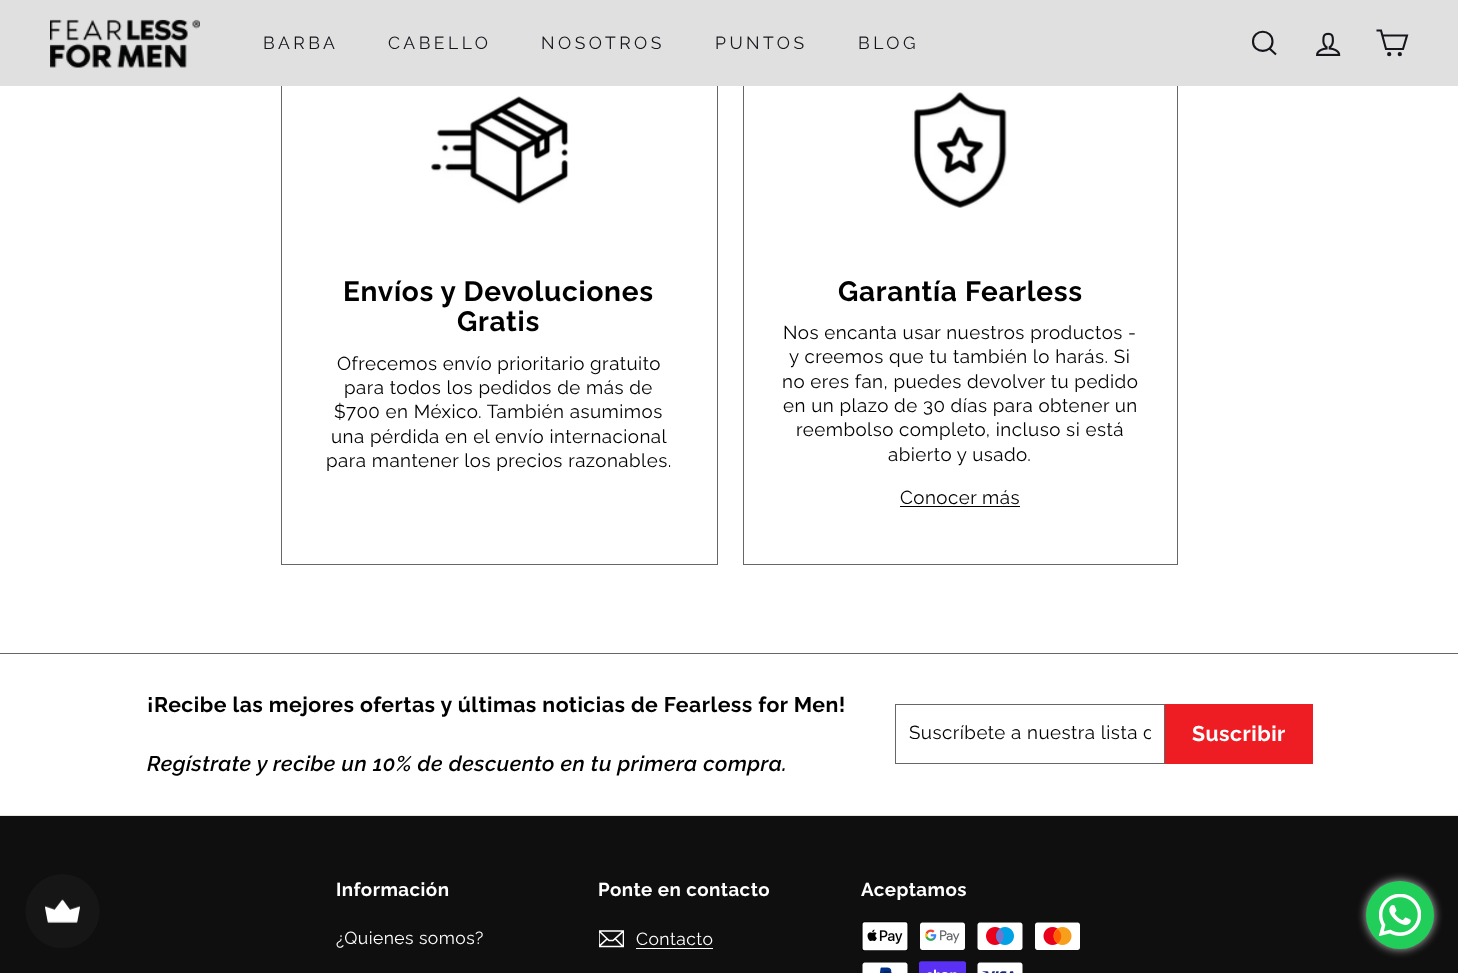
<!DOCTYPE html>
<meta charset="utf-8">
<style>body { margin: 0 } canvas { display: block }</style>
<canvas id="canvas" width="1458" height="973"></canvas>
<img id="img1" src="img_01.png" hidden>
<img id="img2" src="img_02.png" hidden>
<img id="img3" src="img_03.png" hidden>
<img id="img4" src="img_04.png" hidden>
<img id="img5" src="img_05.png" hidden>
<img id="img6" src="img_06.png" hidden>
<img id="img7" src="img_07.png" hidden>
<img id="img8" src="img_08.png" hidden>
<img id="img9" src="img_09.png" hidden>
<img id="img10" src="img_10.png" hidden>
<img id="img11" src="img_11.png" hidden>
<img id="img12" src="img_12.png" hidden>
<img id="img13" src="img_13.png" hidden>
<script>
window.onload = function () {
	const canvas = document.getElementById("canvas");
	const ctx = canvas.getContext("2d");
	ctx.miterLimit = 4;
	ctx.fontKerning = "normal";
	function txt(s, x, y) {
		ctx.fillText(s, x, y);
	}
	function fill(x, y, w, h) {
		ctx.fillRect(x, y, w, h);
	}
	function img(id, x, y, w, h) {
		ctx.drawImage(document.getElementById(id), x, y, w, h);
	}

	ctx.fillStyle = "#FFFFFF";
	fill(0, 0, 1458, 973);
	ctx.fillStyle = "#0F0F0F";
	fill(0, 816, 1458, 157);
	img("img1", 25, 874, 75, 74);
	ctx.strokeStyle = "#666666";
	ctx.strokeRect(281.5, 10.5, 436, 554);
	ctx.strokeRect(743.5, 10.5, 434, 554);
	ctx.fillStyle = "#E0E0E0";
	fill(0, 0, 1458, 86);
	img("img2", 50, 19, 150, 49);
	ctx.beginPath();
	ctx.moveTo(1272.5, 41.5);
	ctx.bezierCurveTo(1272.5, 54, 1253, 54, 1253, 41.5);
	ctx.bezierCurveTo(1253, 28.5, 1272.5, 28.5, 1272.5, 41.5);
	ctx.closePath();
	ctx.moveTo(1276, 54.5);
	ctx.lineTo(1269.5, 48.5);
	ctx.strokeStyle = "#14161C";
	ctx.lineWidth = 2.1;
	ctx.stroke();
	img("img3", 1316, 32, 25, 24);
	ctx.beginPath();
	ctx.moveTo(1382.5, 35.5);
	ctx.lineTo(1407, 35.5);
	ctx.lineTo(1403, 49);
	ctx.lineTo(1386, 49);
	ctx.lineTo(1381, 30.5);
	ctx.lineTo(1376.5, 30.5);
	ctx.stroke();
	ctx.beginPath();
	ctx.arc(1389.2, 54.2, 1.1, 0, Math.PI * 2);
	ctx.stroke();
	ctx.beginPath();
	ctx.arc(1399.8, 54.2, 1.1, 0, Math.PI * 2);
	ctx.stroke();
	img("img4", 430, 96, 139, 109);
	img("img5", 912, 92, 95, 116);
	ctx.fillStyle = "#000000";
	fill(900, 506, 120, 1);
	ctx.fillStyle = "#666666";
	fill(0, 653, 1458, 1);
	ctx.strokeStyle = "#666666";
	ctx.lineWidth = 1;
	ctx.strokeRect(895.5, 704.5, 269, 59);
	ctx.fillStyle = "#EE1D23";
	fill(1165, 704, 148, 60);
	ctx.fillStyle = "#E8E8E1";
	fill(0, 815, 1458, 1);
	ctx.save();
	ctx.beginPath();
	ctx.rect(599, 926, 25, 25);
	ctx.clip();
	ctx.beginPath();
	ctx.moveTo(623.5, 946.5);
	ctx.lineTo(599, 946.5);
	ctx.lineTo(599, 931);
	ctx.lineTo(623.5, 931);
	ctx.closePath();
	ctx.moveTo(599, 931);
	ctx.lineTo(609, 940.5);
	ctx.lineTo(613, 940.5);
	ctx.lineTo(623.5, 931);
	ctx.moveTo(607.5, 938.5);
	ctx.lineTo(599.5, 946);
	ctx.moveTo(623, 946.5);
	ctx.lineTo(615, 938.5);
	ctx.strokeStyle = "#FFFFFF";
	ctx.lineWidth = 1.6;
	ctx.stroke();
	ctx.restore();
	ctx.fillStyle = "#FFFFFF";
	fill(636, 948, 77, 1);
	img("img6", 861, 921, 48, 30);
	img("img7", 920, 922, 45, 28);
	img("img8", 977, 922, 46, 28);
	img("img9", 1035, 922, 45, 28);
	img("img10", 862, 962, 46, 11);
	img("img11", 919, 961, 47, 12);
	img("img12", 977, 962, 46, 11);
	ctx.fillStyle = "#C2C2C2";
	ctx.filter = "blur(5px)";
	ctx.beginPath();
	ctx.roundRect(1366, 881, 68, 68, 34);
	ctx.fill();
	ctx.filter = "none";
	ctx.fillStyle = "#22CE5A";
	ctx.beginPath();
	ctx.arc(1400, 915, 34, 0, Math.PI * 2);
	ctx.fill();
	img("img13", 1379, 894, 42, 42);
	ctx.letterSpacing = "3.5px";
	ctx.font = "17.5px Raleway";
	ctx.fillStyle = "#14161C";
	txt("BARBA", 263, 49);
	txt("CABELLO", 388, 49);
	txt("NOSOTROS", 541, 49);
	txt("PUNTOS", 715, 49);
	txt("BLOG", 858, 49);
	ctx.letterSpacing = "0.7px";
	ctx.font = "bold 28px Raleway";
	ctx.fillStyle = "#000000";
	txt("Envíos y Devoluciones", 343, 301);
	txt("Gratis", 457, 331);
	ctx.letterSpacing = "0.47px";
	ctx.font = "18.75px Raleway";
	txt("Ofrecemos envío prioritario gratuito", 337, 370);
	txt("para todos los pedidos de más de", 344, 394);
	txt("$700 en México. También asumimos", 334, 418);
	txt("una pérdida en el envío internacional", 331, 443);
	txt("para mantener los precios razonables.", 326, 467);
	ctx.letterSpacing = "0.7px";
	ctx.font = "bold 28px Raleway";
	txt("Garantía Fearless", 838, 301);
	ctx.letterSpacing = "0.47px";
	ctx.font = "18.75px Raleway";
	txt("Nos encanta usar nuestros productos -", 783, 339);
	txt("y creemos que tu también lo harás. Si", 789, 363);
	txt("no eres fan, puedes devolver tu pedido", 782, 388);
	txt("en un plazo de 30 días para obtener un", 783, 412);
	txt("reembolso completo, incluso si está", 796, 436);
	txt("abierto y usado.", 888, 461);
	txt("Conocer más", 900, 504);
	ctx.font = "bold 21.25px Raleway";
	txt("¡Recibe las mejores ofertas y últimas noticias de Fearless for Men!", 147, 712);
	ctx.font = "italic 600 21.25px Raleway";
	txt("Regístrate y", 147, 771);
	txt("recibe un 10% de descuento en tu primera compra.", 273, 771);
	ctx.save();
	ctx.beginPath();
	ctx.rect(909, 721, 242, 23);
	ctx.clip();
	ctx.font = "18.75px Raleway";
	txt("Suscríbete a nuestra lista d", 909, 739);
	ctx.restore();
	ctx.letterSpacing = "0.5px";
	ctx.font = "bold 21.25px Raleway";
	ctx.fillStyle = "#FFFFFF";
	txt("Suscribir", 1192, 741);
	ctx.letterSpacing = "0.47px";
	ctx.font = "bold 18.75px Raleway";
	txt("Información", 336, 896);
	ctx.font = "17.5px Raleway";
	txt("¿Quienes somos?", 336, 944);
	ctx.font = "bold 18.75px Raleway";
	txt("Ponte en contacto", 598, 896);
	ctx.font = "17.5px Raleway";
	txt("Contacto", 636, 945);
	ctx.font = "bold 18.75px Raleway";
	txt("Aceptamos", 861, 896);
};
</script>
